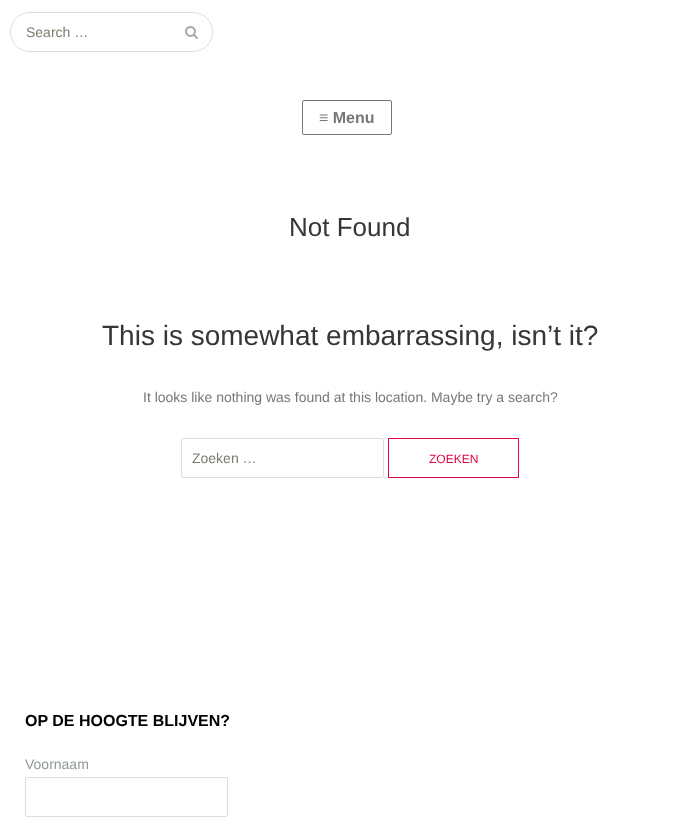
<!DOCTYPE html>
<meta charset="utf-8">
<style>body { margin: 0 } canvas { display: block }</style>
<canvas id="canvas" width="694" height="840"></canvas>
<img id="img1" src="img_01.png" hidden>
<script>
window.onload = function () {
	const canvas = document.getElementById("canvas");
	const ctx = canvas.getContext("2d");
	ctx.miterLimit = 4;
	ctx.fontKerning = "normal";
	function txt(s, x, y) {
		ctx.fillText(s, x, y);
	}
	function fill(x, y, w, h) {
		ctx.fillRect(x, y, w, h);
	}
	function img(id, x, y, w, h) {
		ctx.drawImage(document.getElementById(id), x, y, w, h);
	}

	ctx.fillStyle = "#FFFFFF";
	fill(0, 0, 694, 840);
	ctx.beginPath();
	ctx.roundRect(10.5, 12.5, 202, 39, 19.5);
	ctx.strokeStyle = "#DDDDDD";
	ctx.stroke();
	img("img1", 185, 26, 13, 13);
	ctx.beginPath();
	ctx.roundRect(302.5, 100.5, 89, 34, 1.5);
	ctx.strokeStyle = "#777777";
	ctx.stroke();
	ctx.beginPath();
	ctx.roundRect(181.5, 438.5, 202, 39, 1.5);
	ctx.strokeStyle = "#DDDDDD";
	ctx.stroke();
	ctx.strokeStyle = "#E20641";
	ctx.strokeRect(388.5, 438.5, 130, 39);
	ctx.beginPath();
	ctx.roundRect(25.5, 777.5, 202, 39, 1.5);
	ctx.strokeStyle = "#DDDDDD";
	ctx.stroke();
	ctx.font = "14px Liberation Sans";
	ctx.fillStyle = "#7D7B6D";
	txt("Search …", 26, 37);
	ctx.font = "bold 16px Liberation Sans";
	ctx.fillStyle = "#777777";
	txt("≡ Menu", 319, 123);
	ctx.font = "26px Liberation Sans";
	ctx.fillStyle = "#363636";
	txt("Not Found", 289, 236);
	ctx.font = "28px Liberation Sans";
	txt("This is somewhat embarrassing, isn’t it?", 102, 345);
	ctx.font = "14px Liberation Sans";
	ctx.fillStyle = "#777777";
	txt("It looks like nothing was found at this location. Maybe try a search?", 143, 402);
	ctx.fillStyle = "#7D7B6D";
	txt("Zoeken …", 192, 463);
	ctx.font = "12px Liberation Sans";
	ctx.fillStyle = "#E20641";
	txt("ZOEKEN", 429, 463);
	ctx.font = "bold 16px Liberation Sans";
	ctx.fillStyle = "#000000";
	txt("OP DE HOOGTE BLIJVEN?", 25, 726);
	ctx.font = "14px Liberation Sans";
	ctx.fillStyle = "#8E9798";
	txt("Voornaam", 25, 769);
};
</script>
